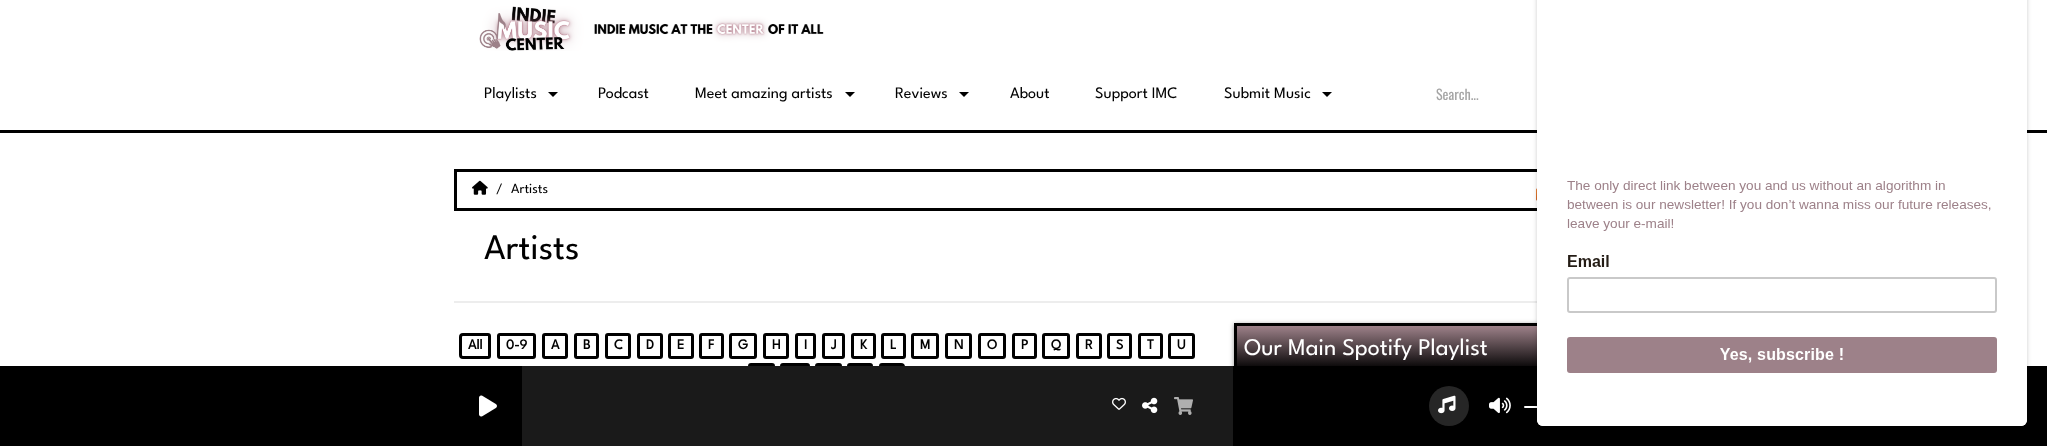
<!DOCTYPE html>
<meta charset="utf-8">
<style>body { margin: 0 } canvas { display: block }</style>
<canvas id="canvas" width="2047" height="446"></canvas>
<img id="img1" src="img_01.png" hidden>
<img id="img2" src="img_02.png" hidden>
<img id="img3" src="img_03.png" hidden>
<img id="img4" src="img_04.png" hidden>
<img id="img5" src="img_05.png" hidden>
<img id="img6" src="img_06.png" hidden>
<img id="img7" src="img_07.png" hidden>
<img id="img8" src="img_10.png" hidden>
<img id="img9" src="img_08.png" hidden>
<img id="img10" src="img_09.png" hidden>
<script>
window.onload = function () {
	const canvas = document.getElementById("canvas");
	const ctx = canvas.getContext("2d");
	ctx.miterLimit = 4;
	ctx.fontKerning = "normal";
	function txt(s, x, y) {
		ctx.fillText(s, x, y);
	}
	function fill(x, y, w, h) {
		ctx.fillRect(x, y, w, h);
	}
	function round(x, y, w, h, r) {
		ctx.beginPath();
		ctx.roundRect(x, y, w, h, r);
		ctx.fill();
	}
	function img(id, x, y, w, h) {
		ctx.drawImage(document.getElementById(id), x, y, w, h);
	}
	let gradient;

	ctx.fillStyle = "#FFFFFF";
	fill(0, 0, 2047, 446);
	ctx.fillStyle = "#000000";
	fill(0, 130, 2047, 3);
	img("img1", 479, 6, 345, 45);
	ctx.beginPath();
	ctx.moveTo(548, 92);
	ctx.lineTo(558, 92);
	ctx.lineTo(553, 97);
	ctx.closePath();
	ctx.fill();
	ctx.beginPath();
	ctx.moveTo(845, 92);
	ctx.lineTo(855, 92);
	ctx.lineTo(850, 97);
	ctx.closePath();
	ctx.fill();
	ctx.beginPath();
	ctx.moveTo(959, 92);
	ctx.lineTo(969, 92);
	ctx.lineTo(964, 97);
	ctx.closePath();
	ctx.fill();
	ctx.beginPath();
	ctx.moveTo(1322, 92);
	ctx.lineTo(1332, 92);
	ctx.lineTo(1327, 97);
	ctx.closePath();
	ctx.fill();
	ctx.beginPath();
	ctx.roundRect(749.5, 364.5, 24, 23, 1.5);
	ctx.strokeStyle = "#000000";
	ctx.lineWidth = 3;
	ctx.stroke();
	ctx.beginPath();
	ctx.roundRect(781.5, 364.5, 27, 23, 1.5);
	ctx.stroke();
	ctx.beginPath();
	ctx.roundRect(816.5, 364.5, 24, 23, 1.5);
	ctx.stroke();
	ctx.beginPath();
	ctx.roundRect(848.5, 364.5, 23, 23, 1.5);
	ctx.stroke();
	ctx.beginPath();
	ctx.roundRect(880.5, 364.5, 23, 23, [1.5, 2.5, 2.5, 1.5]);
	ctx.stroke();
	ctx.fillStyle = "rgba(0, 0, 0, 0.4)";
	ctx.filter = "blur(2.5px)";
	ctx.beginPath();
	ctx.rect(1234, 324, 360, 50);
	ctx.fill();
	ctx.filter = "none";
	ctx.fillStyle = "#000000";
	fill(1234, 323, 303, 3);
	ctx.beginPath();
	ctx.moveTo(1234, 373);
	ctx.lineTo(1234, 323);
	ctx.lineTo(1237, 326);
	ctx.lineTo(1237, 370);
	ctx.closePath();
	ctx.fill();
	fill(0, 366, 2047, 80);
	img("img2", 479, 395, 18, 22);
	ctx.fillStyle = "#1A1A1A";
	fill(522, 366, 711, 80);
	img("img3", 1112, 397, 14, 13);
	img("img4", 1142, 397, 16, 17);
	img("img5", 1174, 397, 19, 18);
	ctx.fillStyle = "#262626";
	ctx.beginPath();
	ctx.arc(1449, 406, 20, 0, Math.PI * 2);
	ctx.fill();
	img("img6", 1438, 395, 18, 19);
	img("img7", 1489, 397, 22, 17);
	ctx.fillStyle = "#FFFFFF";
	round(1524, 406, 52, 2, 1);
	ctx.strokeRect(455.5, 170.5, 1137, 39);
	img("img8", 1536, 188, 1, 13);
	ctx.fillStyle = "#EDEDED";
	fill(454, 301, 1083, 2);
	gradient = ctx.createLinearGradient(1414, 326, 1414, 370);
	gradient.addColorStop(0, "#9D8189");
	gradient.addColorStop(1, "#000000");
	ctx.fillStyle = gradient;
	fill(1237, 326, 300, 40);
	ctx.fillStyle = "rgba(0, 0, 0, 0.2)";
	ctx.filter = "blur(2px)";
	ctx.beginPath();
	ctx.roundRect(1537, -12, 490, 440, 6);
	ctx.fill();
	ctx.filter = "none";
	ctx.fillStyle = "#FFFFFF";
	round(1537, -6, 490, 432, 6);
	img("img9", 1537, 181, 490, 245);
	img("img10", 472, 180, 16, 15);
	ctx.beginPath();
	ctx.roundRect(460.5, 334.5, 29, 23, [2.5, 1.5, 1.5, 2.5]);
	ctx.stroke();
	ctx.beginPath();
	ctx.roundRect(498.5, 334.5, 36, 23, 1.5);
	ctx.stroke();
	ctx.beginPath();
	ctx.roundRect(543.5, 334.5, 23, 23, 1.5);
	ctx.stroke();
	ctx.beginPath();
	ctx.roundRect(575.5, 334.5, 22, 23, 1.5);
	ctx.stroke();
	ctx.beginPath();
	ctx.roundRect(606.5, 334.5, 23, 23, 1.5);
	ctx.stroke();
	ctx.beginPath();
	ctx.roundRect(638.5, 334.5, 23, 23, 1.5);
	ctx.stroke();
	ctx.beginPath();
	ctx.roundRect(669.5, 334.5, 23, 23, 1.5);
	ctx.stroke();
	ctx.beginPath();
	ctx.roundRect(700.5, 334.5, 22, 23, 1.5);
	ctx.stroke();
	ctx.beginPath();
	ctx.roundRect(730.5, 334.5, 25, 23, 1.5);
	ctx.stroke();
	ctx.beginPath();
	ctx.roundRect(764.5, 334.5, 23, 23, 1.5);
	ctx.stroke();
	ctx.beginPath();
	ctx.roundRect(796.5, 334.5, 18, 23, 1.5);
	ctx.stroke();
	ctx.beginPath();
	ctx.roundRect(823.5, 334.5, 20, 23, 1.5);
	ctx.stroke();
	ctx.beginPath();
	ctx.roundRect(852.5, 334.5, 22, 23, 1.5);
	ctx.stroke();
	ctx.beginPath();
	ctx.roundRect(882.5, 334.5, 22, 23, 1.5);
	ctx.stroke();
	ctx.beginPath();
	ctx.roundRect(912.5, 334.5, 25, 23, 1.5);
	ctx.stroke();
	ctx.beginPath();
	ctx.roundRect(946.5, 334.5, 24, 23, 1.5);
	ctx.stroke();
	ctx.beginPath();
	ctx.roundRect(979.5, 334.5, 25, 23, 1.5);
	ctx.stroke();
	ctx.beginPath();
	ctx.roundRect(1013.5, 334.5, 22, 23, 1.5);
	ctx.stroke();
	ctx.beginPath();
	ctx.roundRect(1043.5, 334.5, 25, 23, 1.5);
	ctx.stroke();
	ctx.beginPath();
	ctx.roundRect(1077.5, 334.5, 23, 23, 1.5);
	ctx.stroke();
	ctx.beginPath();
	ctx.roundRect(1108.5, 334.5, 22, 23, 1.5);
	ctx.stroke();
	ctx.beginPath();
	ctx.roundRect(1139.5, 334.5, 22, 23, 1.5);
	ctx.stroke();
	ctx.beginPath();
	ctx.roundRect(1169.5, 334.5, 24, 23, 1.5);
	ctx.stroke();
	ctx.font = "16px League Spartan";
	ctx.fillStyle = "#000000";
	txt("Playlists", 484, 98);
	txt("Podcast", 598, 98);
	txt("Meet amazing artists", 695, 98);
	txt("Reviews", 895, 98);
	txt("About", 1010, 98);
	txt("Support IMC", 1095, 98);
	txt("Submit Music", 1224, 98);
	ctx.font = "14px Oswald";
	ctx.fillStyle = "#A5A5A5";
	txt("Search...", 1436, 100);
	ctx.font = "14px League Spartan";
	ctx.fillStyle = "#000000";
	txt("/", 496, 193);
	txt("Artists", 511, 193);
	ctx.font = "36px League Spartan";
	txt("Artists", 484, 259);
	ctx.font = "bold 14px League Spartan";
	txt("All", 468, 349);
	txt("0-9", 506, 349);
	txt("A", 551, 349);
	txt("B", 583, 349);
	txt("C", 614, 349);
	txt("D", 646, 349);
	txt("E", 677, 349);
	txt("F", 708, 349);
	txt("G", 738, 349);
	txt("H", 772, 349);
	txt("I", 804, 349);
	txt("J", 831, 349);
	txt("K", 860, 349);
	txt("L", 890, 349);
	txt("M", 920, 349);
	txt("N", 954, 349);
	txt("O", 987, 349);
	txt("P", 1021, 349);
	txt("Q", 1051, 349);
	txt("R", 1085, 349);
	txt("S", 1116, 349);
	txt("T", 1147, 349);
	txt("U", 1177, 349);
	ctx.font = "24px League Spartan";
	ctx.fillStyle = "#FFFFFF";
	txt("Our Main Spotify Playlist", 1244, 355);
};
</script>
